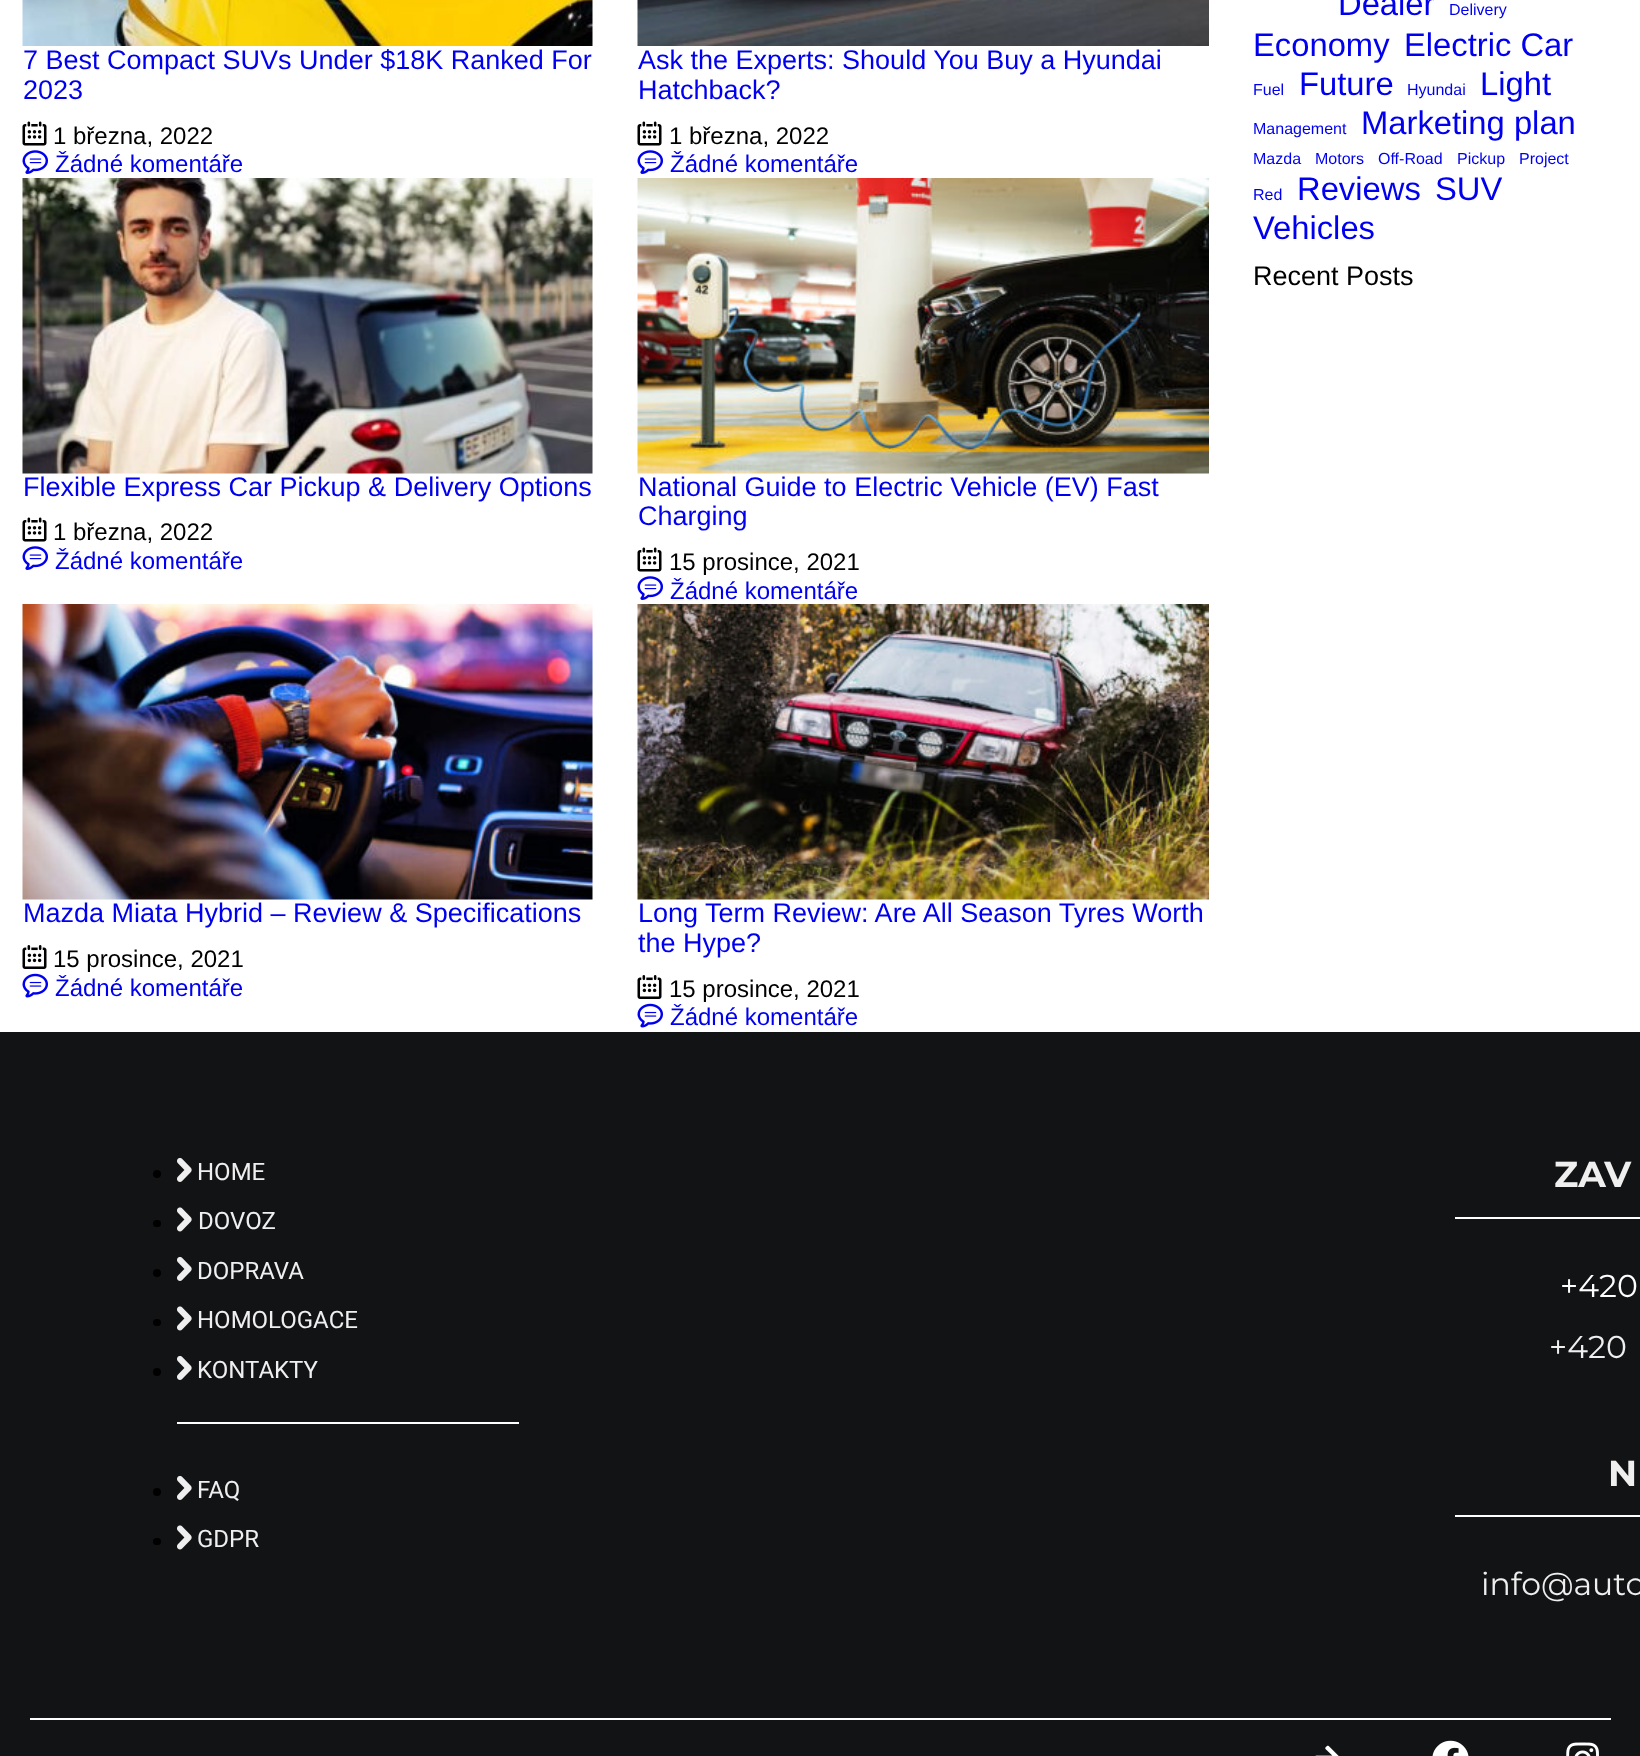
<!DOCTYPE html>
<meta charset="utf-8">
<style>body { margin: 0 } canvas { display: block }</style>
<canvas id="canvas" width="1640" height="1756"></canvas>
<img id="img1" src="img_01.png" hidden>
<img id="img2" src="img_02.png" hidden>
<img id="img3" src="img_03.png" hidden>
<img id="img4" src="img_04.png" hidden>
<img id="img5" src="img_05.png" hidden>
<img id="img6" src="img_06.png" hidden>
<img id="img7" src="img_07.png" hidden>
<img id="img8" src="img_08.png" hidden>
<img id="img9" src="img_09.png" hidden>
<img id="img10" src="img_10.png" hidden>
<img id="img11" src="img_11.png" hidden>
<img id="img12" src="img_12.png" hidden>
<img id="img13" src="img_13.png" hidden>
<img id="img14" src="img_14.png" hidden>
<img id="img15" src="img_15.png" hidden>
<script>
window.onload = function () {
	const canvas = document.getElementById("canvas");
	const ctx = canvas.getContext("2d");
	ctx.miterLimit = 4;
	ctx.fontKerning = "normal";
	function txt(s, x, y) {
		ctx.fillText(s, x, y);
	}
	function fill(x, y, w, h) {
		ctx.fillRect(x, y, w, h);
	}
	function round(x, y, w, h, r) {
		ctx.beginPath();
		ctx.roundRect(x, y, w, h, r);
		ctx.fill();
	}
	function img(id, x, y, w, h) {
		ctx.drawImage(document.getElementById(id), x, y, w, h);
	}

	ctx.fillStyle = "#FFFFFF";
	fill(0, 0, 1640, 1756);
	img("img1", 22, 0, 571, 46);
	img("img2", 22, 121, 25, 25);
	img("img3", 22, 150, 26, 24);
	img("img4", 637, 0, 572, 46);
	img("img2", 637, 121, 25, 25);
	img("img3", 637, 150, 26, 24);
	img("img5", 22, 178, 571, 296);
	img("img2", 22, 517, 25, 25);
	img("img3", 22, 546, 26, 24);
	img("img6", 637, 178, 572, 296);
	img("img2", 637, 547, 25, 25);
	img("img3", 637, 576, 26, 24);
	img("img7", 22, 604, 571, 296);
	img("img8", 22, 945, 25, 24);
	img("img9", 22, 973, 26, 25);
	img("img10", 637, 604, 572, 296);
	img("img8", 637, 975, 25, 24);
	img("img9", 637, 1003, 26, 25);
	ctx.fillStyle = "#121315";
	fill(0, 1032, 1640, 724);
	ctx.fillStyle = "#000000";
	ctx.beginPath();
	ctx.arc(157, 1174, 4, 0, Math.PI * 2);
	ctx.fill();
	img("img11", 177, 1157, 15, 25);
	round(153, 1220, 8, 7, 3.5);
	img("img12", 177, 1207, 15, 25);
	ctx.beginPath();
	ctx.arc(157, 1273, 4, 0, Math.PI * 2);
	ctx.fill();
	img("img11", 177, 1256, 15, 25);
	round(153, 1319, 8, 7, 3.5);
	img("img12", 177, 1306, 15, 25);
	ctx.beginPath();
	ctx.arc(157, 1372, 4, 0, Math.PI * 2);
	ctx.fill();
	img("img11", 177, 1355, 15, 25);
	ctx.fillStyle = "#FFFFFF";
	fill(177, 1422, 342, 2);
	ctx.fillStyle = "#000000";
	ctx.beginPath();
	ctx.arc(157, 1492, 4, 0, Math.PI * 2);
	ctx.fill();
	img("img11", 177, 1475, 15, 25);
	round(153, 1538, 8, 7, 3.5);
	img("img12", 177, 1525, 15, 25);
	ctx.fillStyle = "#FFFFFF";
	fill(1455, 1217, 185, 2);
	fill(1455, 1515, 185, 2);
	fill(30, 1718, 1581, 2);
	img("img13", 1315, 1745, 24, 11);
	img("img14", 1432, 1740, 37, 16);
	img("img15", 1566, 1742, 33, 14);
	ctx.font = "27px Liberation Sans";
	ctx.fillStyle = "#0000EE";
	txt("7 Best Compact SUVs Under $18K Ranked For", 23, 69);
	txt("2023", 23, 99);
	ctx.font = "24px Liberation Sans";
	ctx.fillStyle = "#000000";
	txt("1 března, 2022", 53, 144);
	ctx.fillStyle = "#0000EE";
	txt("Žádné komentáře", 55, 172);
	ctx.font = "27px Liberation Sans";
	txt("Ask the Experts: Should You Buy a Hyundai", 638, 69);
	txt("Hatchback?", 638, 99);
	ctx.font = "24px Liberation Sans";
	ctx.fillStyle = "#000000";
	txt("1 března, 2022", 669, 144);
	ctx.fillStyle = "#0000EE";
	txt("Žádné komentáře", 670, 172);
	ctx.font = "27px Liberation Sans";
	txt("Flexible Express Car Pickup & Delivery Options", 23, 496);
	ctx.font = "24px Liberation Sans";
	ctx.fillStyle = "#000000";
	txt("1 března, 2022", 53, 540);
	ctx.fillStyle = "#0000EE";
	txt("Žádné komentáře", 55, 569);
	ctx.font = "27px Liberation Sans";
	txt("National Guide to Electric Vehicle (EV) Fast", 638, 496);
	txt("Charging", 638, 525);
	ctx.font = "24px Liberation Sans";
	ctx.fillStyle = "#000000";
	txt("15 prosince, 2021", 669, 570);
	ctx.fillStyle = "#0000EE";
	txt("Žádné komentáře", 670, 599);
	ctx.font = "27px Liberation Sans";
	txt("Mazda Miata Hybrid – Review & Specifications", 23, 922);
	ctx.font = "24px Liberation Sans";
	ctx.fillStyle = "#000000";
	txt("15 prosince, 2021", 53, 967);
	ctx.fillStyle = "#0000EE";
	txt("Žádné komentáře", 55, 996);
	ctx.font = "27px Liberation Sans";
	txt("Long Term Review: Are All Season Tyres Worth", 638, 922);
	txt("the Hype?", 638, 952);
	ctx.font = "24px Liberation Sans";
	ctx.fillStyle = "#000000";
	txt("15 prosince, 2021", 669, 997);
	ctx.fillStyle = "#0000EE";
	txt("Žádné komentáře", 670, 1025);
	ctx.font = "32.75px Liberation Sans";
	txt("Dealer", 1338, 15);
	ctx.font = "16px Liberation Sans";
	txt("Delivery", 1449, 15);
	ctx.font = "32.75px Liberation Sans";
	txt("Economy", 1253, 56);
	txt("Electric Car", 1404, 56);
	ctx.font = "16px Liberation Sans";
	txt("Fuel", 1253, 95);
	ctx.font = "32.75px Liberation Sans";
	txt("Future", 1299, 95);
	ctx.font = "16px Liberation Sans";
	txt("Hyundai", 1407, 95);
	ctx.font = "32.75px Liberation Sans";
	txt("Light", 1480, 95);
	ctx.font = "16px Liberation Sans";
	txt("Management", 1253, 134);
	ctx.font = "32.75px Liberation Sans";
	txt("Marketing plan", 1361, 134);
	ctx.font = "16px Liberation Sans";
	txt("Mazda", 1253, 164);
	txt("Motors", 1315, 164);
	txt("Off-Road", 1378, 164);
	txt("Pickup", 1457, 164);
	txt("Project", 1519, 164);
	txt("Red", 1253, 200);
	ctx.font = "32.75px Liberation Sans";
	txt("Reviews", 1297, 200);
	txt("SUV", 1435, 200);
	txt("Vehicles", 1253, 239);
	ctx.font = "27px Liberation Sans";
	ctx.fillStyle = "#000000";
	txt("Recent Posts", 1253, 285);
	ctx.font = "24px Roboto";
	ctx.fillStyle = "#EFEFEF";
	txt("HOME", 197, 1180);
	txt("DOVOZ", 198, 1229);
	txt("DOPRAVA", 197, 1279);
	txt("HOMOLOGACE", 197, 1328);
	txt("KONTAKTY", 197, 1378);
	txt("FAQ", 197, 1498);
	txt("GDPR", 197, 1547);
	ctx.font = "bold 36px Montserrat";
	txt("ZAV", 1554, 1187);
	ctx.font = "31.5px Montserrat";
	ctx.fillStyle = "#FFFFFF";
	txt("+420", 1560, 1297);
	ctx.fillStyle = "#EFEFEF";
	txt("+420", 1549, 1358);
	ctx.font = "bold 36px Montserrat";
	txt("N", 1608, 1486);
	ctx.font = "31.5px Montserrat";
	txt("info@auto", 1481, 1595);
};
</script>
